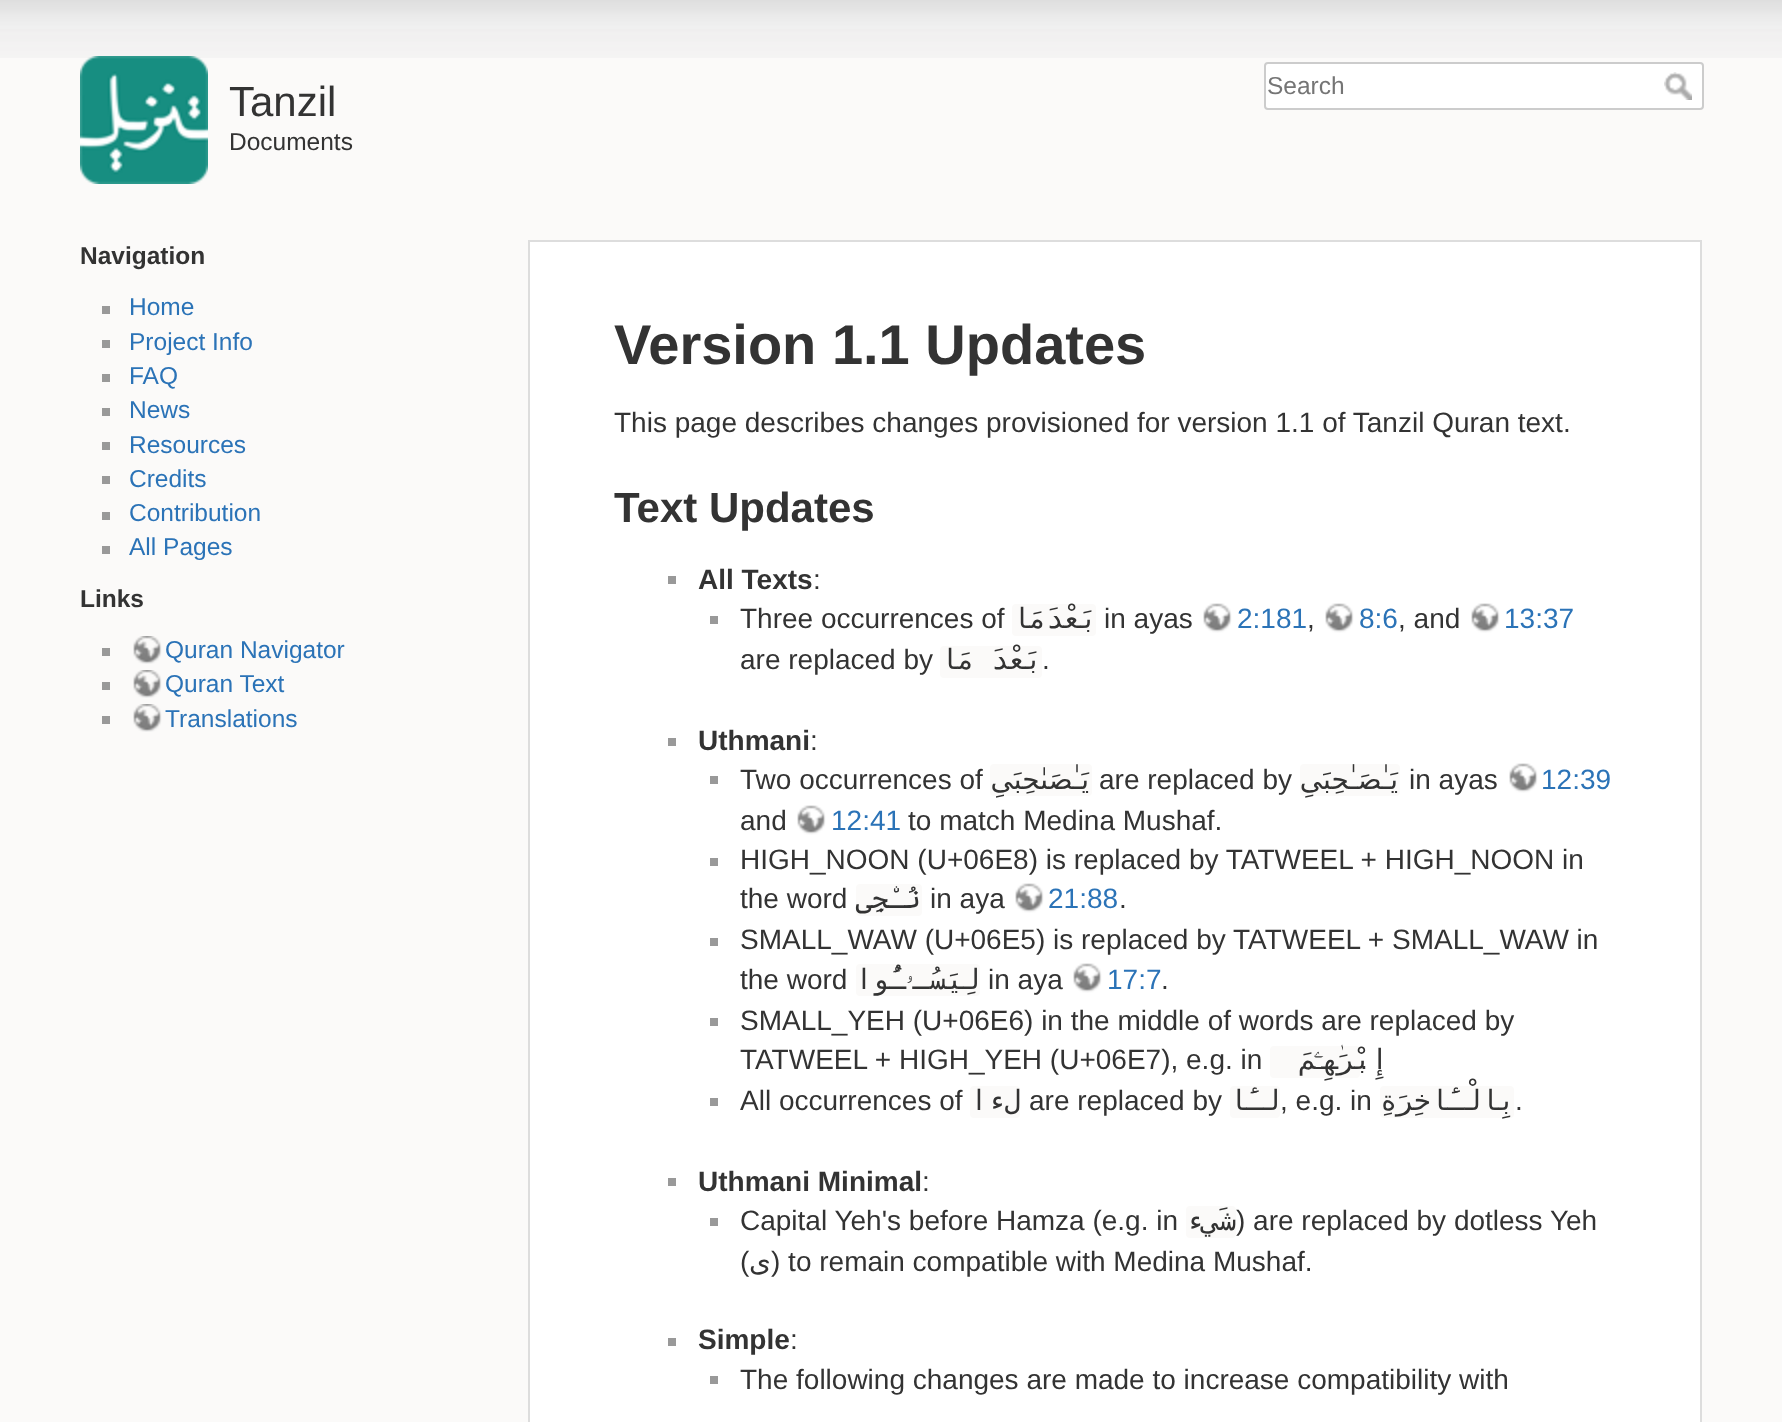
<!DOCTYPE html>
<meta charset="utf-8">
<style>body { margin: 0 } canvas { display: block }</style>
<canvas id="canvas" width="1782" height="1422"></canvas>
<img id="img1" src="img_01.png" hidden>
<img id="img2" src="img_02.png" hidden>
<img id="img3" src="img_03.png" hidden>
<img id="img4" src="img_04.png" hidden>
<img id="img5" src="img_05.png" hidden>
<script>
window.onload = function () {
	const canvas = document.getElementById("canvas");
	const ctx = canvas.getContext("2d");
	ctx.miterLimit = 4;
	ctx.fontKerning = "normal";
	function txt(s, x, y) {
		ctx.fillText(s, x, y);
	}
	function fill(x, y, w, h) {
		ctx.fillRect(x, y, w, h);
	}
	function round(x, y, w, h, r) {
		ctx.beginPath();
		ctx.roundRect(x, y, w, h, r);
		ctx.fill();
	}
	function img(id, x, y, w, h) {
		ctx.drawImage(document.getElementById(id), x, y, w, h);
	}

	ctx.fillStyle = "#FBFAF9";
	fill(0, 0, 1782, 1422);
	img("img1", 0, 0, 1782, 58);
	img("img2", 80, 56, 128, 128);
	ctx.fillStyle = "#FFFFFF";
	ctx.beginPath();
	ctx.roundRect(1265, 63, 438, 46, 3);
	ctx.fill();
	ctx.strokeStyle = "#CCCCCC";
	ctx.lineWidth = 2;
	ctx.stroke();
	img("img3", 1664, 72, 28, 28);
	ctx.fillStyle = "#999999";
	fill(102, 306, 8, 8);
	fill(102, 340, 8, 8);
	fill(102, 374, 8, 8);
	fill(102, 408, 8, 8);
	fill(102, 442, 8, 8);
	fill(102, 476, 8, 8);
	fill(102, 512, 8, 8);
	fill(102, 546, 8, 8);
	fill(102, 648, 8, 8);
	img("img4", 133, 636, 29, 28);
	fill(102, 682, 8, 8);
	img("img4", 133, 670, 29, 28);
	fill(102, 716, 8, 8);
	img("img4", 133, 704, 29, 28);
	ctx.fillStyle = "#FFFFFF";
	ctx.beginPath();
	ctx.rect(529, 241, 1172, 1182);
	ctx.fill();
	ctx.strokeStyle = "#DDDDDD";
	ctx.stroke();
	ctx.fillStyle = "#999999";
	fill(668, 576, 8, 8);
	fill(710, 616, 8, 8);
	ctx.fillStyle = "#FBFAF9";
	round(1012, 604, 84, 32, 4);
	img("img5", 1203, 603, 29, 30);
	img("img5", 1325, 603, 29, 30);
	img("img5", 1471, 603, 29, 30);
	round(940, 646, 102, 32, 4);
	ctx.fillStyle = "#999999";
	fill(668, 738, 8, 8);
	fill(710, 776, 8, 8);
	ctx.fillStyle = "#FBFAF9";
	round(990, 764, 102, 32, 4);
	round(1300, 764, 100, 32, 4);
	img("img5", 1509, 763, 29, 30);
	img("img5", 797, 805, 29, 30);
	ctx.fillStyle = "#999999";
	fill(710, 858, 8, 8);
	ctx.fillStyle = "#FBFAF9";
	round(856, 884, 66, 32, 4);
	img("img5", 1015, 883, 29, 30);
	ctx.fillStyle = "#999999";
	fill(710, 938, 8, 8);
	ctx.fillStyle = "#FBFAF9";
	round(856, 964, 124, 32, 4);
	img("img5", 1073, 963, 29, 30);
	ctx.fillStyle = "#999999";
	fill(710, 1018, 8, 8);
	ctx.fillStyle = "#FBFAF9";
	round(1270, 1046, 90, 32, 4);
	ctx.fillStyle = "#999999";
	fill(710, 1098, 8, 8);
	ctx.fillStyle = "#FBFAF9";
	round(970, 1086, 50, 32, 4);
	round(1230, 1086, 50, 32, 4);
	round(1380, 1086, 134, 32, 4);
	ctx.fillStyle = "#999999";
	fill(668, 1178, 8, 8);
	fill(710, 1218, 8, 8);
	ctx.fillStyle = "#FBFAF9";
	round(1186, 1206, 50, 32, 4);
	ctx.fillStyle = "#999999";
	fill(668, 1338, 8, 8);
	fill(710, 1376, 8, 8);
	ctx.font = "42px Liberation Sans";
	ctx.fillStyle = "#333333";
	txt("Tanzil", 229, 116);
	ctx.font = "24.5px Liberation Sans";
	txt("Documents", 229, 150);
	ctx.fillStyle = "#757575";
	txt("Search", 1267, 94);
	ctx.font = "bold 24.5px Liberation Sans";
	ctx.fillStyle = "#333333";
	txt("Navigation", 80, 264);
	ctx.font = "24.5px Liberation Sans";
	ctx.fillStyle = "#2B73B7";
	txt("Home", 129, 315);
	txt("Project Info", 129, 350);
	txt("FAQ", 129, 384);
	txt("News", 129, 418);
	txt("Resources", 129, 453);
	txt("Credits", 129, 487);
	txt("Contribution", 129, 521);
	txt("All Pages", 129, 555);
	ctx.font = "bold 24.5px Liberation Sans";
	ctx.fillStyle = "#333333";
	txt("Links", 80, 607);
	ctx.font = "24.5px Liberation Sans";
	ctx.fillStyle = "#2B73B7";
	txt("Quran Navigator", 165, 658);
	txt("Quran Text", 165, 692);
	txt("Translations", 165, 727);
	ctx.font = "bold 56px Liberation Sans";
	ctx.fillStyle = "#333333";
	txt("Version 1.1 Updates", 614, 364);
	ctx.font = "28px Liberation Sans";
	txt("This page describes changes provisioned for version 1.1 of Tanzil Quran text.", 614, 432);
	ctx.font = "bold 42px Liberation Sans";
	txt("Text Updates", 614, 522);
	ctx.font = "bold 28px Liberation Sans";
	txt("All Texts", 698, 589);
	ctx.font = "28px Liberation Sans";
	txt(":", 813, 589);
	txt("Three occurrences of", 740, 628);
	ctx.direction = "rtl";
	ctx.font = "28px DejaVu Sans Mono";
	txt("بَعْدَمَا", 1097, 628);
	ctx.direction = "ltr";
	ctx.font = "28px Liberation Sans";
	txt("in ayas", 1104, 628);
	ctx.fillStyle = "#2B73B7";
	txt("2:181", 1237, 628);
	ctx.fillStyle = "#333333";
	txt(",", 1307, 628);
	ctx.fillStyle = "#2B73B7";
	txt("8:6", 1359, 628);
	ctx.fillStyle = "#333333";
	txt(", and", 1398, 628);
	ctx.fillStyle = "#2B73B7";
	txt("13:37", 1504, 628);
	ctx.fillStyle = "#333333";
	txt("are replaced by", 740, 669);
	ctx.direction = "rtl";
	ctx.font = "28px DejaVu Sans Mono";
	txt("بَعْدَ مَا", 1042, 669);
	ctx.direction = "ltr";
	ctx.font = "28px Liberation Sans";
	txt(".", 1042, 669);
	ctx.font = "bold 28px Liberation Sans";
	txt("Uthmani", 698, 750);
	ctx.font = "28px Liberation Sans";
	txt(":", 810, 750);
	txt("Two occurrences of", 740, 789);
	ctx.direction = "rtl";
	ctx.font = "28px DejaVu Sans";
	txt("يَـٰصَىٰحِبَىِ", 1089, 789);
	ctx.direction = "ltr";
	ctx.font = "28px Liberation Sans";
	txt("are replaced by", 1099, 789);
	ctx.direction = "rtl";
	ctx.font = "28px DejaVu Sans";
	txt("يَـٰصَـٰحِبَىِ", 1398, 789);
	ctx.direction = "ltr";
	ctx.font = "28px Liberation Sans";
	txt("in ayas", 1409, 789);
	ctx.fillStyle = "#2B73B7";
	txt("12:39", 1541, 789);
	ctx.fillStyle = "#333333";
	txt("and", 740, 830);
	ctx.fillStyle = "#2B73B7";
	txt("12:41", 831, 830);
	ctx.fillStyle = "#333333";
	txt("to match Medina Mushaf.", 908, 830);
	txt("HIGH_NOON (U+06E8) is replaced by TATWEEL + HIGH_NOON in", 740, 869);
	txt("the word", 740, 908);
	ctx.direction = "rtl";
	ctx.font = "28px Cascadia Code";
	txt("نُـۨجِى", 921, 908);
	ctx.direction = "ltr";
	ctx.font = "28px Liberation Sans";
	txt("in aya", 930, 908);
	ctx.fillStyle = "#2B73B7";
	txt("21:88", 1048, 908);
	ctx.fillStyle = "#333333";
	txt(".", 1119, 908);
	txt("SMALL_WAW (U+06E5) is replaced by TATWEEL + SMALL_WAW in", 740, 949);
	txt("the word", 740, 989);
	ctx.direction = "rtl";
	ctx.font = "28px DejaVu Sans Mono";
	txt("ـُٔوا", 906, 989);
	ctx.font = "28px FreeSerif";
	txt("ۥ", 913, 989);
	ctx.font = "28px DejaVu Sans Mono";
	txt("لِيَسُـ", 980, 989);
	ctx.direction = "ltr";
	ctx.font = "28px Liberation Sans";
	txt("in aya", 988, 989);
	ctx.fillStyle = "#2B73B7";
	txt("17:7", 1107, 989);
	ctx.fillStyle = "#333333";
	txt(".", 1161, 989);
	txt("SMALL_YEH (U+06E6) in the middle of words are replaced by", 740, 1030);
	ctx.direction = "rtl";
	ctx.font = "28px FreeSerif";
	txt("‌ٰ‍", 1338, 1069);
	ctx.direction = "ltr";
	ctx.font = "28px Liberation Sans";
	txt("TATWEEL + HIGH_YEH (U+06E7), e.g. in", 740, 1069);
	ctx.direction = "rtl";
	ctx.font = "28px DejaVu Sans Mono";
	txt("‍هِـۧمَ", 1338, 1069);
	txt("إِبْرَ", 1388, 1069);
	ctx.direction = "ltr";
	ctx.font = "28px Liberation Sans";
	txt(".", 1360, 1069);
	txt("All occurrences of", 740, 1110);
	ctx.direction = "rtl";
	ctx.font = "28px DejaVu Sans Mono";
	txt("لءا", 1021, 1110);
	ctx.direction = "ltr";
	ctx.font = "28px Liberation Sans";
	txt("are replaced by", 1029, 1110);
	ctx.direction = "rtl";
	ctx.font = "28px DejaVu Sans Mono";
	txt("لـَٔا", 1280, 1110);
	ctx.direction = "ltr";
	ctx.font = "28px Liberation Sans";
	txt(", e.g. in", 1280, 1110);
	ctx.direction = "rtl";
	ctx.font = "28px DejaVu Sans Mono";
	txt("بِالْـَٔاخِرَةِ", 1515, 1110);
	ctx.direction = "ltr";
	ctx.font = "28px Liberation Sans";
	txt(".", 1515, 1110);
	ctx.font = "bold 28px Liberation Sans";
	txt("Uthmani Minimal", 698, 1191);
	ctx.font = "28px Liberation Sans";
	txt(":", 922, 1191);
	txt("Capital Yeh's before Hamza (e.g. in", 740, 1230);
	ctx.direction = "rtl";
	ctx.font = "28px DejaVu Sans Mono";
	txt("شَيء", 1236, 1230);
	ctx.direction = "ltr";
	ctx.font = "28px Liberation Sans";
	txt(") are replaced by dotless Yeh", 1236, 1230);
	txt("(", 740, 1271);
	ctx.direction = "rtl";
	ctx.font = "28px DejaVu Sans";
	txt("ى", 771, 1271);
	ctx.direction = "ltr";
	ctx.font = "28px Liberation Sans";
	txt(") to remain compatible with Medina Mushaf.", 771, 1271);
	ctx.font = "bold 28px Liberation Sans";
	txt("Simple", 698, 1349);
	ctx.font = "28px Liberation Sans";
	txt(":", 790, 1349);
	txt("The following changes are made to increase compatibility with", 740, 1389);
};
</script>
